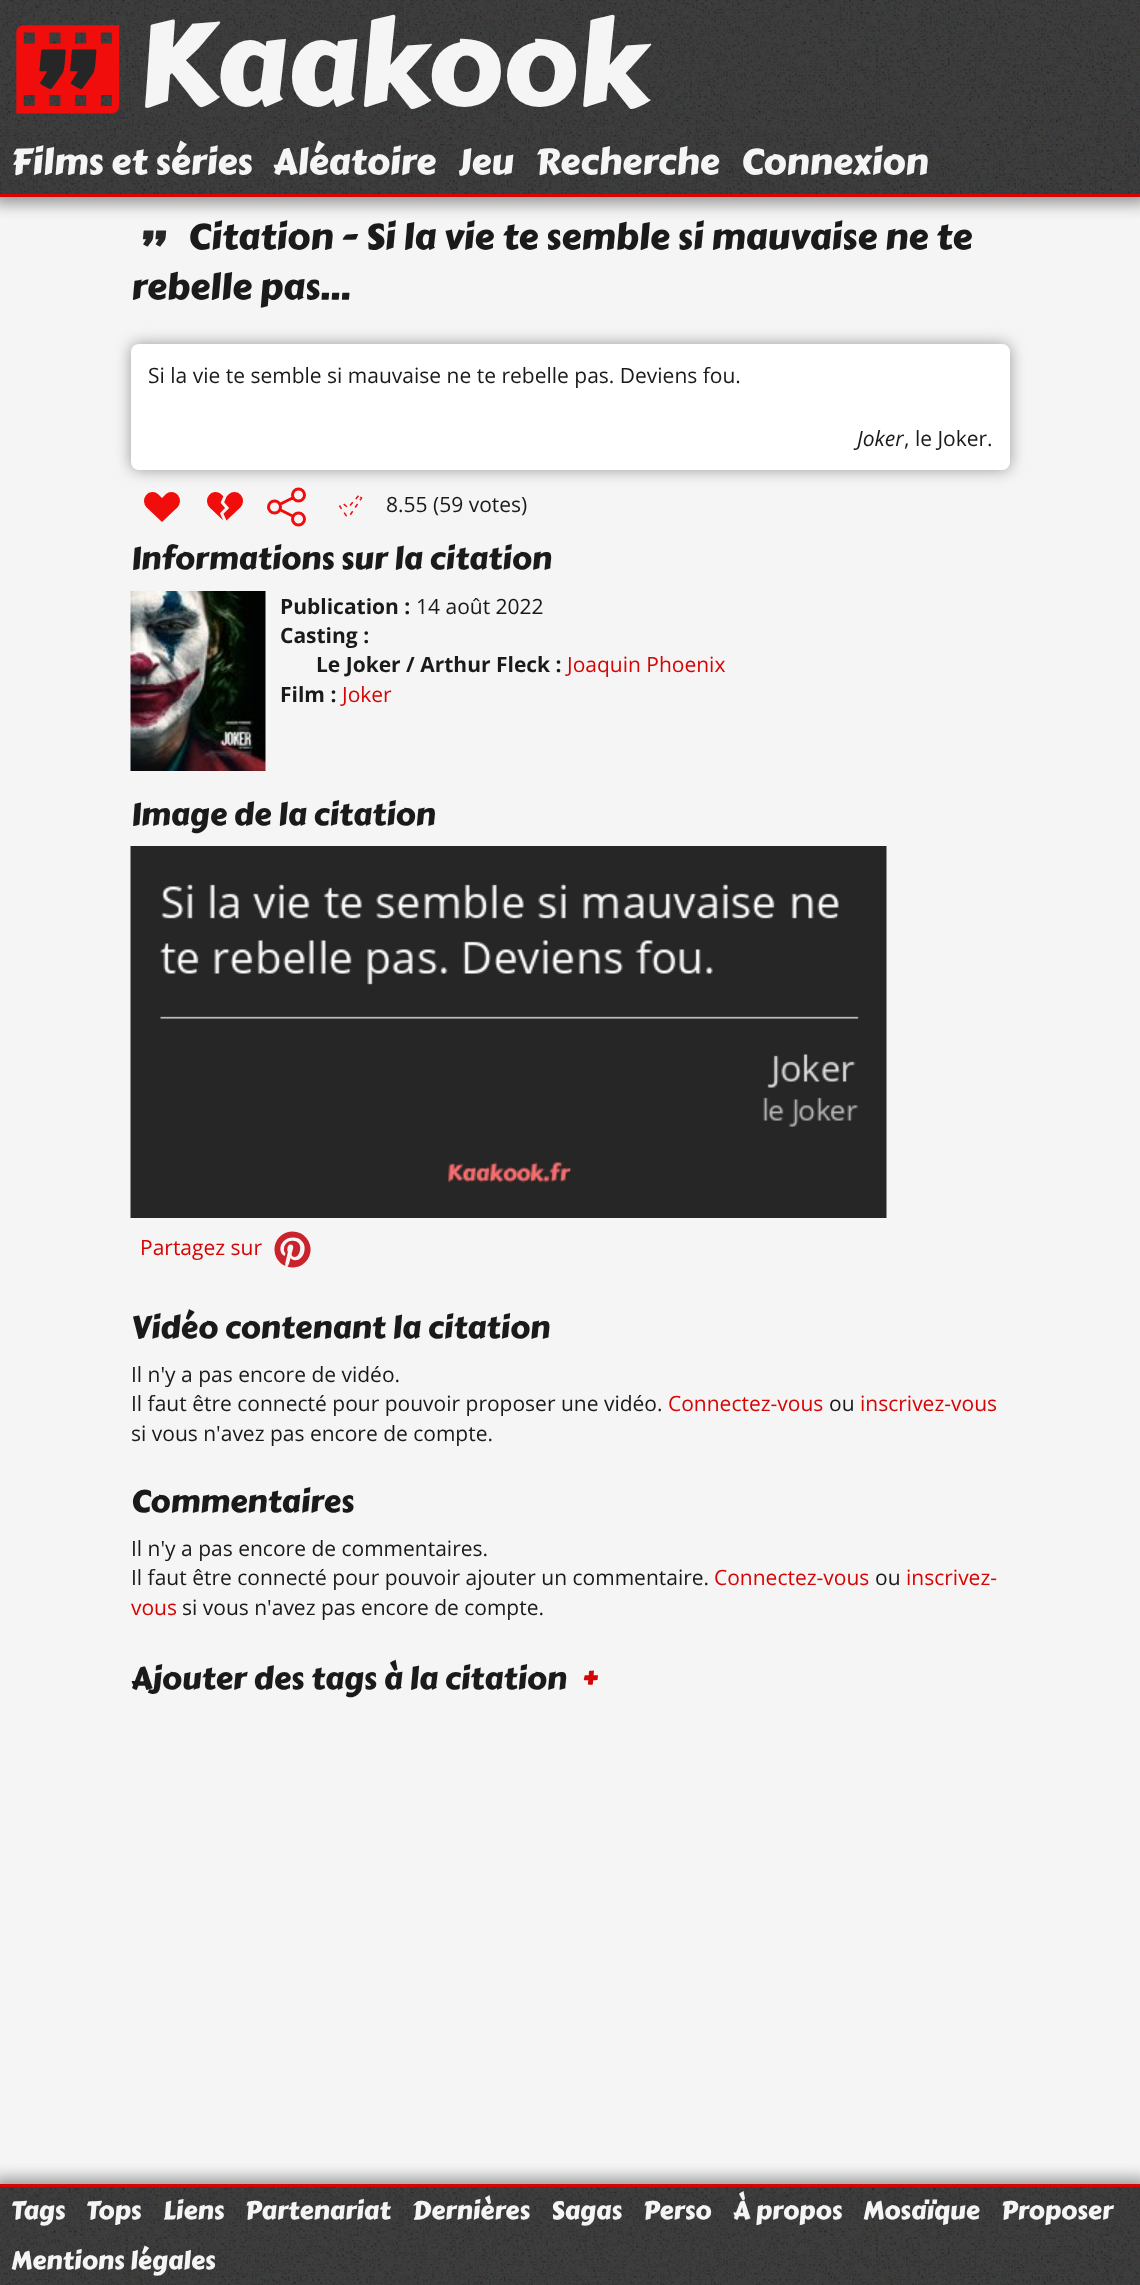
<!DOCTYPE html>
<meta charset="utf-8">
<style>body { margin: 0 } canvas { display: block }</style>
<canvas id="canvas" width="1140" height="2285"></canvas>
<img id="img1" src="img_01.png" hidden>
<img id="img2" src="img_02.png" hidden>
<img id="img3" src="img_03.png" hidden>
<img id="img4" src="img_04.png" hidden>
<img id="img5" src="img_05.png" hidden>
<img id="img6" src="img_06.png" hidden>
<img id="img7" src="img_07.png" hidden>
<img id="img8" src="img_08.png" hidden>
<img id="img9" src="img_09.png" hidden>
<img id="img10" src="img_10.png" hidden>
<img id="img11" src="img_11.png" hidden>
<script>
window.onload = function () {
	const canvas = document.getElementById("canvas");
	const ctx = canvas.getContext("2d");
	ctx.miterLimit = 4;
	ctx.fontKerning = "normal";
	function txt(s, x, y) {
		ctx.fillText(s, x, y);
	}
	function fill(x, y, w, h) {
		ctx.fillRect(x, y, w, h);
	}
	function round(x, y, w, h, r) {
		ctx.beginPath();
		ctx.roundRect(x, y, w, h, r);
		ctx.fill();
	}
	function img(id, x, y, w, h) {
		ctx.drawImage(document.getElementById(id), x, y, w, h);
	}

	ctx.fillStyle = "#F5F5F5";
	fill(0, 0, 1140, 2285);
	ctx.save();
	ctx.beginPath();
	ctx.rect(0, 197, 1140, 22);
	ctx.clip();
	ctx.fillStyle = "#999999";
	ctx.filter = "blur(7.5px)";
	ctx.beginPath();
	ctx.rect(-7, -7, 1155, 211);
	ctx.fill();
	ctx.filter = "none";
	ctx.restore();
	img("img1", 0, 0, 1140, 194);
	ctx.fillStyle = "#D60505";
	fill(0, 194, 1140, 3);
	img("img2", 16, 25, 104, 89);
	img("img3", 142, 230, 25, 17);
	ctx.fillStyle = "#999999";
	ctx.filter = "blur(7.5px)";
	ctx.beginPath();
	ctx.roundRect(131, 344, 879, 126, 8);
	ctx.fill();
	ctx.filter = "none";
	ctx.fillStyle = "#FFFFFF";
	round(131, 344, 879, 126, 8);
	img("img4", 144, 492, 36, 30);
	img("img5", 207, 492, 36, 29);
	img("img6", 267, 487, 39, 40);
	img("img7", 338, 495, 25, 22);
	img("img8", 130, 591, 136, 180);
	img("img9", 130, 846, 757, 372);
	img("img10", 274, 1231, 37, 37);
	ctx.save();
	ctx.beginPath();
	ctx.rect(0, 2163, 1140, 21);
	ctx.clip();
	ctx.fillStyle = "#999999";
	ctx.filter = "blur(7.5px)";
	ctx.beginPath();
	ctx.rect(-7, 2178, 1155, 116);
	ctx.fill();
	ctx.filter = "none";
	ctx.restore();
	img("img11", 0, 2187, 1140, 98);
	ctx.fillStyle = "#D60505";
	fill(0, 2184, 1140, 3);
	ctx.font = "117.5px Carter One";
	ctx.fillStyle = "#F5F5F5";
	txt("Kaakook", 137, 104);
	ctx.font = "36px Carter One";
	txt("Films et séries", 11, 174);
	txt("Aléatoire", 273, 174);
	txt("Jeu", 458, 174);
	txt("Recherche", 535, 174);
	txt("Connexion", 741, 174);
	ctx.fillStyle = "#1A1A1A";
	txt("Citation - Si la vie te semble si mauvaise ne te", 188, 249);
	txt("rebelle pas…", 131, 299);
	ctx.font = "21px Open Sans";
	txt("Si la vie te semble si mauvaise ne te rebelle pas. Deviens fou.", 148, 383);
	ctx.font = "italic 21px Open Sans";
	txt("Joker", 857, 446);
	ctx.font = "21px Open Sans";
	txt(", le Joker.", 904, 446);
	txt("8.55 (59 votes)", 386, 512);
	ctx.font = "31.25px Carter One";
	txt("Informations sur la citation", 131, 569);
	ctx.font = "bold 21px Open Sans";
	txt("Publication :", 280, 614);
	ctx.font = "21px Open Sans";
	txt("14 août 2022", 416, 614);
	ctx.font = "bold 21px Open Sans";
	txt("Casting :", 280, 643);
	txt("Le Joker / Arthur Fleck :", 316, 672);
	ctx.font = "21px Open Sans";
	ctx.fillStyle = "#D60505";
	txt("Joaquin Phoenix", 567, 672);
	ctx.font = "bold 21px Open Sans";
	ctx.fillStyle = "#1A1A1A";
	txt("Film :", 280, 702);
	ctx.font = "21px Open Sans";
	ctx.fillStyle = "#D60505";
	txt("Joker", 342, 702);
	ctx.font = "31.25px Carter One";
	ctx.fillStyle = "#1A1A1A";
	txt("Image de la citation", 131, 825);
	ctx.font = "21px Open Sans";
	ctx.fillStyle = "#D60505";
	txt("Partagez sur", 140, 1255);
	ctx.font = "31.25px Carter One";
	ctx.fillStyle = "#1A1A1A";
	txt("Vidéo contenant la citation", 131, 1338);
	ctx.font = "21px Open Sans";
	txt("Il n'y a pas encore de vidéo.", 131, 1382);
	txt("Il faut être connecté pour pouvoir proposer une vidéo.", 131, 1411);
	ctx.fillStyle = "#D60505";
	txt("Connectez-vous", 668, 1411);
	ctx.fillStyle = "#1A1A1A";
	txt("ou", 829, 1411);
	ctx.fillStyle = "#D60505";
	txt("inscrivez-vous", 860, 1411);
	ctx.fillStyle = "#1A1A1A";
	txt("si vous n'avez pas encore de compte.", 131, 1441);
	ctx.font = "31.25px Carter One";
	txt("Commentaires", 131, 1512);
	ctx.font = "21px Open Sans";
	txt("Il n'y a pas encore de commentaires.", 131, 1556);
	txt("Il faut être connecté pour pouvoir ajouter un commentaire.", 131, 1585);
	ctx.fillStyle = "#D60505";
	txt("Connectez-vous", 714, 1585);
	ctx.fillStyle = "#1A1A1A";
	txt("ou", 875, 1585);
	ctx.fillStyle = "#D60505";
	txt("inscrivez-", 906, 1585);
	txt("vous", 131, 1615);
	ctx.fillStyle = "#1A1A1A";
	txt("si vous n'avez pas encore de compte.", 182, 1615);
	ctx.font = "31.25px Carter One";
	txt("Ajouter des tags à la citation", 131, 1689);
	ctx.font = "34px Carter One";
	ctx.fillStyle = "#D60505";
	txt("+", 582, 1689);
	ctx.font = "25.25px Carter One";
	ctx.fillStyle = "#F5F5F5";
	txt("Tags", 11, 2219);
	txt("Tops", 86, 2219);
	txt("Liens", 163, 2219);
	txt("Partenariat", 245, 2219);
	txt("Dernières", 412, 2219);
	txt("Sagas", 551, 2219);
	txt("Perso", 643, 2219);
	txt("À propos", 733, 2219);
	txt("Mosaïque", 863, 2219);
	txt("Proposer", 1001, 2219);
	txt("Mentions légales", 11, 2269);
};
</script>
